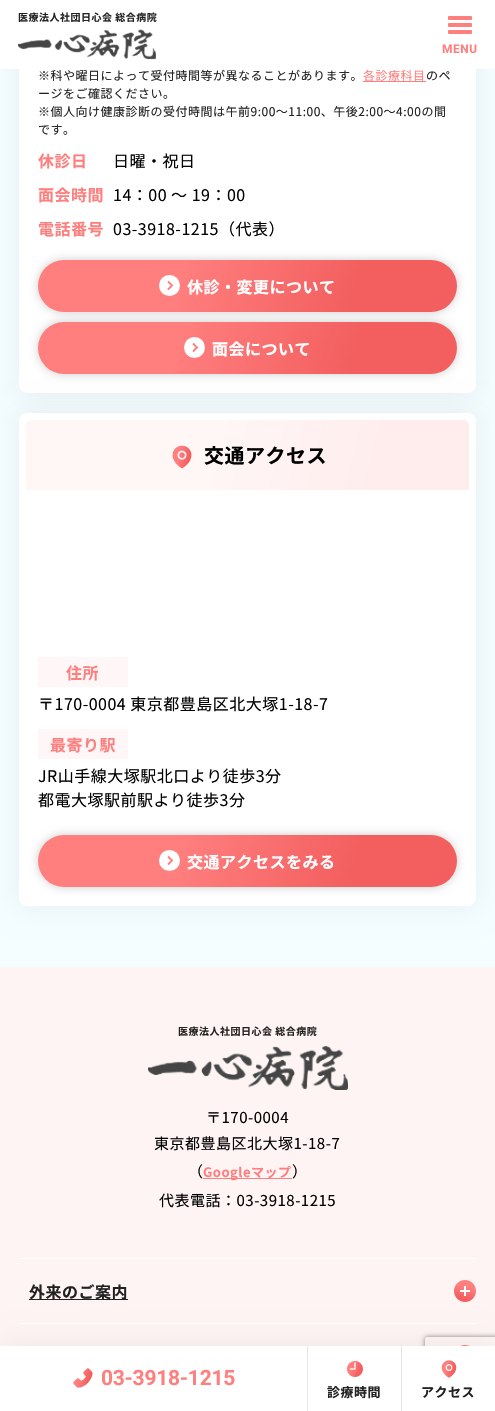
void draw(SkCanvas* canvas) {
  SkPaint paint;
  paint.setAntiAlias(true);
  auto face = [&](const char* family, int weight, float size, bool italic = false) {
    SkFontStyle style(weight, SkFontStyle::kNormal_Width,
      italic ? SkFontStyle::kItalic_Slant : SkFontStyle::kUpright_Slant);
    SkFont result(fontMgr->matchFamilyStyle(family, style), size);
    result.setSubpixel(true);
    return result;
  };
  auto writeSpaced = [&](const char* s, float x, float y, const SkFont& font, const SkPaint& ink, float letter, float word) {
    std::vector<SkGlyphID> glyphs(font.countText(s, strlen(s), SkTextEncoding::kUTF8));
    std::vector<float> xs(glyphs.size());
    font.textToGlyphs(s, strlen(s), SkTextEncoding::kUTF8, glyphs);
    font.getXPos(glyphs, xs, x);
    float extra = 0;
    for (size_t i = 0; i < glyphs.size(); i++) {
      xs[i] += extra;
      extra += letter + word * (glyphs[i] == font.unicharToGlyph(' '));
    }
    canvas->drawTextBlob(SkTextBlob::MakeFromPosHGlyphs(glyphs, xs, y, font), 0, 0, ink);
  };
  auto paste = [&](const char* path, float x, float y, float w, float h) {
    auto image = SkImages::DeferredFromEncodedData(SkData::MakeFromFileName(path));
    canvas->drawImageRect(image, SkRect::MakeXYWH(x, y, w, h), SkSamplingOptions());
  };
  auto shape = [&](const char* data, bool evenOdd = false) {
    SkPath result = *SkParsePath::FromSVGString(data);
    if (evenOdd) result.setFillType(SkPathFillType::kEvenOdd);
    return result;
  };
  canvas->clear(0xfff4fdff);
  paint.setColor(0x0f000000);
  paint.setMaskFilter(SkMaskFilter::MakeBlur(kNormal_SkBlurStyle, 15));
  canvas->drawRoundRect(SkRect::MakeXYWH(19, -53, 457, 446), 8, 8, paint);
  paint.setMaskFilter(nullptr);
  paint.setColor(0xffffffff);
  canvas->drawRoundRect(SkRect::MakeXYWH(19, -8, 457, 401), 8, 8, paint);
  canvas->drawRect(SkRect::MakeXYWH(0, 0, 495, 69), paint);
  paste("img/1.png", 18, 29, 138, 31);
  paste("img/2.png", 442, 16, 35, 38);
  paint.setColor(0xffff7f7f);
  canvas->drawRect(SkRect::MakeXYWH(363, 81, 63, 1), paint);
  paint.setColor(0x33000000);
  paint.setMaskFilter(SkMaskFilter::MakeBlur(kNormal_SkBlurStyle, 5));
  canvas->drawRoundRect(SkRect::MakeXYWH(38, 260, 419, 52), 26, 26, paint);
  paint.setMaskFilter(nullptr);
  {
    const SkColor colors[] = {0xffff7e7e, 0xfff35f5f};
    const float stops[] = {0.34f, 0.75f};
    const SkPoint ends[] = {{50, 223}, {445, 349}};
    paint.setShader(SkGradientShader::MakeLinear(ends, colors, stops, 2, SkTileMode::kClamp));
    paint.setAlpha(255);
  }
  canvas->drawRoundRect(SkRect::MakeXYWH(38, 260, 419, 52), 26, 26, paint);
  paint.setShader(nullptr);
  paint.setColor(0xffffffff);
  canvas->drawCircle(169.5f, 285.5f, 10.5f, paint);
  paint.setStroke(true);
  paint.setStrokeWidth(1.9f);
  paint.setColor(0xffff7e7e);
  canvas->drawPath(shape("M168 289.5L172 285.5L168 281.5"), paint);
  paint.setStroke(false);
  paint.setColor(0x33000000);
  paint.setMaskFilter(SkMaskFilter::MakeBlur(kNormal_SkBlurStyle, 5));
  canvas->drawRoundRect(SkRect::MakeXYWH(38, 322, 419, 52), 26, 26, paint);
  paint.setMaskFilter(nullptr);
  paint.setColor(0x0f000000);
  paint.setMaskFilter(SkMaskFilter::MakeBlur(kNormal_SkBlurStyle, 15));
  canvas->drawRoundRect(SkRect::MakeXYWH(19, 413, 457, 493), 8, 8, paint);
  paint.setMaskFilter(nullptr);
  {
    const SkColor colors[] = {0xffff7e7e, 0xfff35f5f};
    const float stops[] = {0.34f, 0.75f};
    const SkPoint ends[] = {{50, 285}, {445, 411}};
    paint.setShader(SkGradientShader::MakeLinear(ends, colors, stops, 2, SkTileMode::kClamp));
    paint.setAlpha(255);
  }
  canvas->drawRoundRect(SkRect::MakeXYWH(38, 322, 419, 52), 26, 26, paint);
  paint.setShader(nullptr);
  paint.setColor(0xffffffff);
  canvas->drawCircle(194.5f, 347.5f, 10.5f, paint);
  paint.setStroke(true);
  paint.setColor(0xffff7e7e);
  canvas->drawPath(shape("M193 351.5L197 347.5L193 343.5"), paint);
  paint.setStroke(false);
  paint.setColor(0xffffffff);
  canvas->drawRoundRect(SkRect::MakeXYWH(19, 413, 457, 493), 8, 8, paint);
  {
    const SkColor colors[] = {0xfffff6f6, 0xffffeded};
    const float stops[] = {0.42f, 0.79f};
    const SkPoint ends[] = {{31, 400}, {464, 510}};
    paint.setShader(SkGradientShader::MakeLinear(ends, colors, stops, 2, SkTileMode::kClamp));
    paint.setAlpha(255);
  }
  canvas->drawPath(shape("M32 420H463C466.5 420 469 422.5 469 426V490H26V426C26 422.5 28.5 420 32 420Z"), paint);
  paste("img/3.png", 172, 445, 20, 24);
  paint.setShader(nullptr);
  paint.setColor(0xfffff7f7);
  canvas->drawRect(SkRect::MakeXYWH(38, 657, 90, 30), paint);
  canvas->drawRect(SkRect::MakeXYWH(38, 729, 90, 30), paint);
  paint.setColor(0x33000000);
  paint.setMaskFilter(SkMaskFilter::MakeBlur(kNormal_SkBlurStyle, 5));
  canvas->drawRoundRect(SkRect::MakeXYWH(38, 835, 419, 52), 26, 26, paint);
  paint.setMaskFilter(nullptr);
  {
    const SkColor colors[] = {0xffff7e7e, 0xfff35f5f};
    const float stops[] = {0.34f, 0.75f};
    const SkPoint ends[] = {{50, 798}, {445, 924}};
    paint.setShader(SkGradientShader::MakeLinear(ends, colors, stops, 2, SkTileMode::kClamp));
    paint.setAlpha(255);
  }
  canvas->drawRoundRect(SkRect::MakeXYWH(38, 835, 419, 52), 26, 26, paint);
  paint.setShader(nullptr);
  paint.setColor(0xffffffff);
  canvas->drawCircle(169.5f, 860.5f, 10.5f, paint);
  paint.setStroke(true);
  paint.setColor(0xffff7e7e);
  canvas->drawPath(shape("M168 864.5L172 860.5L168 856.5"), paint);
  paint.setStroke(false);
  paint.setColor(0xfffff4f4);
  canvas->drawRect(SkRect::MakeXYWH(0, 967, 495, 379), paint);
  paste("img/4.png", 148, 1046, 200, 44);
  {
    const struct { float x, y, w, h; SkColor color; } items[] = {
      {203, 1178, 89, 1, 0xffff7f7f},
      {19, 1258, 457, 1, 0xffffffff},
      {29, 1299, 99, 1, 0xff212121},
    };
    for (auto [x, y, w, h, color] : items) {
      paint.setColor(color);
      canvas->drawRect(SkRect::MakeXYWH(x, y, w, h), paint);
    }
  }
  paste("img/5.png", 454, 1280, 22, 22);
  paint.setColor(0xffffffff);
  canvas->drawRect(SkRect::MakeXYWH(19, 1323, 457, 1), paint);
  paste("img/6.png", 460, 1345, 10, 1);
  canvas->save();
  canvas->clipPath(shape("M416 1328H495V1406H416ZM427 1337H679C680 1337 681 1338 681 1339V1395C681 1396 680 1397 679 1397H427C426 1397 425 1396 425 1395V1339C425 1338 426 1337 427 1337Z", true), true);
  paint.setColor(0xff808080);
  paint.setMaskFilter(SkMaskFilter::MakeBlur(kNormal_SkBlurStyle, 2.5f));
  canvas->drawRoundRect(SkRect::MakeXYWH(425, 1337, 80, 60), 2, 2, paint);
  paint.setMaskFilter(nullptr);
  canvas->restore();
  paint.setColor(0x0f000000);
  paint.setMaskFilter(SkMaskFilter::MakeBlur(kNormal_SkBlurStyle, 15));
  canvas->drawRect(SkRect::MakeXYWH(0, 1346, 495, 65), paint);
  paint.setMaskFilter(nullptr);
  paint.setColor(0xffffffff);
  canvas->drawRect(SkRect::MakeXYWH(0, 1346, 495, 65), paint);
  paste("img/7.png", 73, 1368, 20, 20);
  paint.setColor(0xffe5e5e5);
  canvas->drawRect(SkRect::MakeXYWH(307, 1346, 1, 65), paint);
  paste("img/8.png", 347, 1361, 16, 16);
  canvas->drawRect(SkRect::MakeXYWH(401, 1346, 1, 65), paint);
  paste("img/9.png", 441, 1360, 16, 18);
  auto f0 = face("Noto Sans JP", 700, 10);
  paint.setColor(0xff212121);
  writeSpaced("医療法人社団日心会 総合病院", 18, 21, f0, paint, 0.5f, 0);
  auto f1 = face("Noto Sans JP", 400, 12);
  writeSpaced("※科や曜日によって受付時間等が異なることがあります。", 38, 80, f1, paint, 0.5f, 0);
  paint.setColor(0xffff7f7f);
  writeSpaced("各診療科目", 363, 80, f1, paint, 0.5f, 0);
  paint.setColor(0xff212121);
  {
    const struct { const char* s; float x, y; } items[] = {
      {"のペ", 426, 80},
      {"ージをご確認ください。", 38, 98},
      {"※個人向け健康診断の受付時間は午前9:00～11:00、午後2:00～4:00の間", 38, 116},
      {"です。", 38, 134},
    };
    for (auto [s, x, y] : items) {
      writeSpaced(s, x, y, f1, paint, 0.5f, 0);
    }
  }
  auto f2 = face("Noto Sans JP", 700, 16);
  paint.setColor(0xffff7f7f);
  writeSpaced("休診日", 38, 167, f2, paint, 0.5f, 0);
  auto f3 = face("Noto Sans JP", 400, 16);
  paint.setColor(0xff000000);
  writeSpaced("日曜・祝日", 113, 167, f3, paint, 0.5f, 0);
  paint.setColor(0xffff7f7f);
  writeSpaced("面会時間", 38, 201, f2, paint, 0.5f, 0);
  paint.setColor(0xff000000);
  writeSpaced("14：00 ～ 19：00", 113, 201, f3, paint, 0.5f, 0);
  paint.setColor(0xffff7f7f);
  writeSpaced("電話番号", 38, 235, f2, paint, 0.5f, 0);
  paint.setColor(0xff000000);
  writeSpaced("03-3918-1215（代表）", 113, 235, f3, paint, 0.5f, 0);
  paint.setColor(0xffffffff);
  writeSpaced("休診・変更について", 187, 293, f2, paint, 0.5f, 0);
  writeSpaced("面会について", 212, 355, f2, paint, 0.5f, 0);
  auto f4 = face("Noto Sans JP", 700, 20);
  paint.setColor(0xff000000);
  writeSpaced("交通アクセス", 204, 463, f4, paint, 0.5f, 0);
  paint.setColor(0xffff7f7f);
  writeSpaced("住所", 66, 679, f2, paint, 0.5f, 0);
  paint.setColor(0xff000000);
  writeSpaced("〒170-0004 東京都豊島区北大塚1-18-7", 38, 710, f3, paint, 0.5f, 0);
  paint.setColor(0xffff7f7f);
  writeSpaced("最寄り駅", 50, 751, f2, paint, 0.5f, 0);
  paint.setColor(0xff000000);
  writeSpaced("JR山手線大塚駅北口より徒歩3分", 38, 782, f3, paint, 0.5f, 0);
  writeSpaced("都電大塚駅前駅より徒歩3分", 38, 806, f3, paint, 0.5f, 0);
  paint.setColor(0xffffffff);
  writeSpaced("交通アクセスをみる", 187, 868, f2, paint, 0.5f, 0);
  paint.setColor(0xff212121);
  writeSpaced("医療法人社団日心会 総合病院", 178, 1035, f0, paint, 0.5f, 0);
  auto f5 = face("Noto Sans JP", 400, 15);
  paint.setColor(0xff000000);
  {
    const struct { const char* s; float x, y; } items[] = {
      {"〒170-0004", 206, 1123},
      {"東京都豊島区北大塚1-18-7", 154, 1149},
      {"（", 188, 1177},
    };
    for (auto [s, x, y] : items) {
      writeSpaced(s, x, y, f5, paint, 0.5f, 0);
    }
  }
  auto f6 = face("Noto Sans JP", 700, 13);
  paint.setColor(0xffff7f7f);
  writeSpaced("Googleマップ", 203, 1177, f6, paint, 0.5f, 0);
  paint.setColor(0xff000000);
  writeSpaced("）", 292, 1177, f5, paint, 0.5f, 0);
  writeSpaced("代表電話：03-3918-1215", 159, 1206, f5, paint, 0.5f, 0);
  paint.setColor(0xff212121);
  writeSpaced("外来のご案内", 29, 1298, f2, paint, 0.5f, 0);
  auto f7 = face("Roboto", 700, 21);
  paint.setColor(0xffff7f7f);
  writeSpaced("03-3918-1215", 101, 1385, f7, paint, -0.25f, 0);
  paint.setColor(0xff212121);
  writeSpaced("診療時間", 327, 1397, f6, paint, 0.5f, 0);
  writeSpaced("アクセス", 421, 1397, f6, paint, 0.5f, 0);
}
